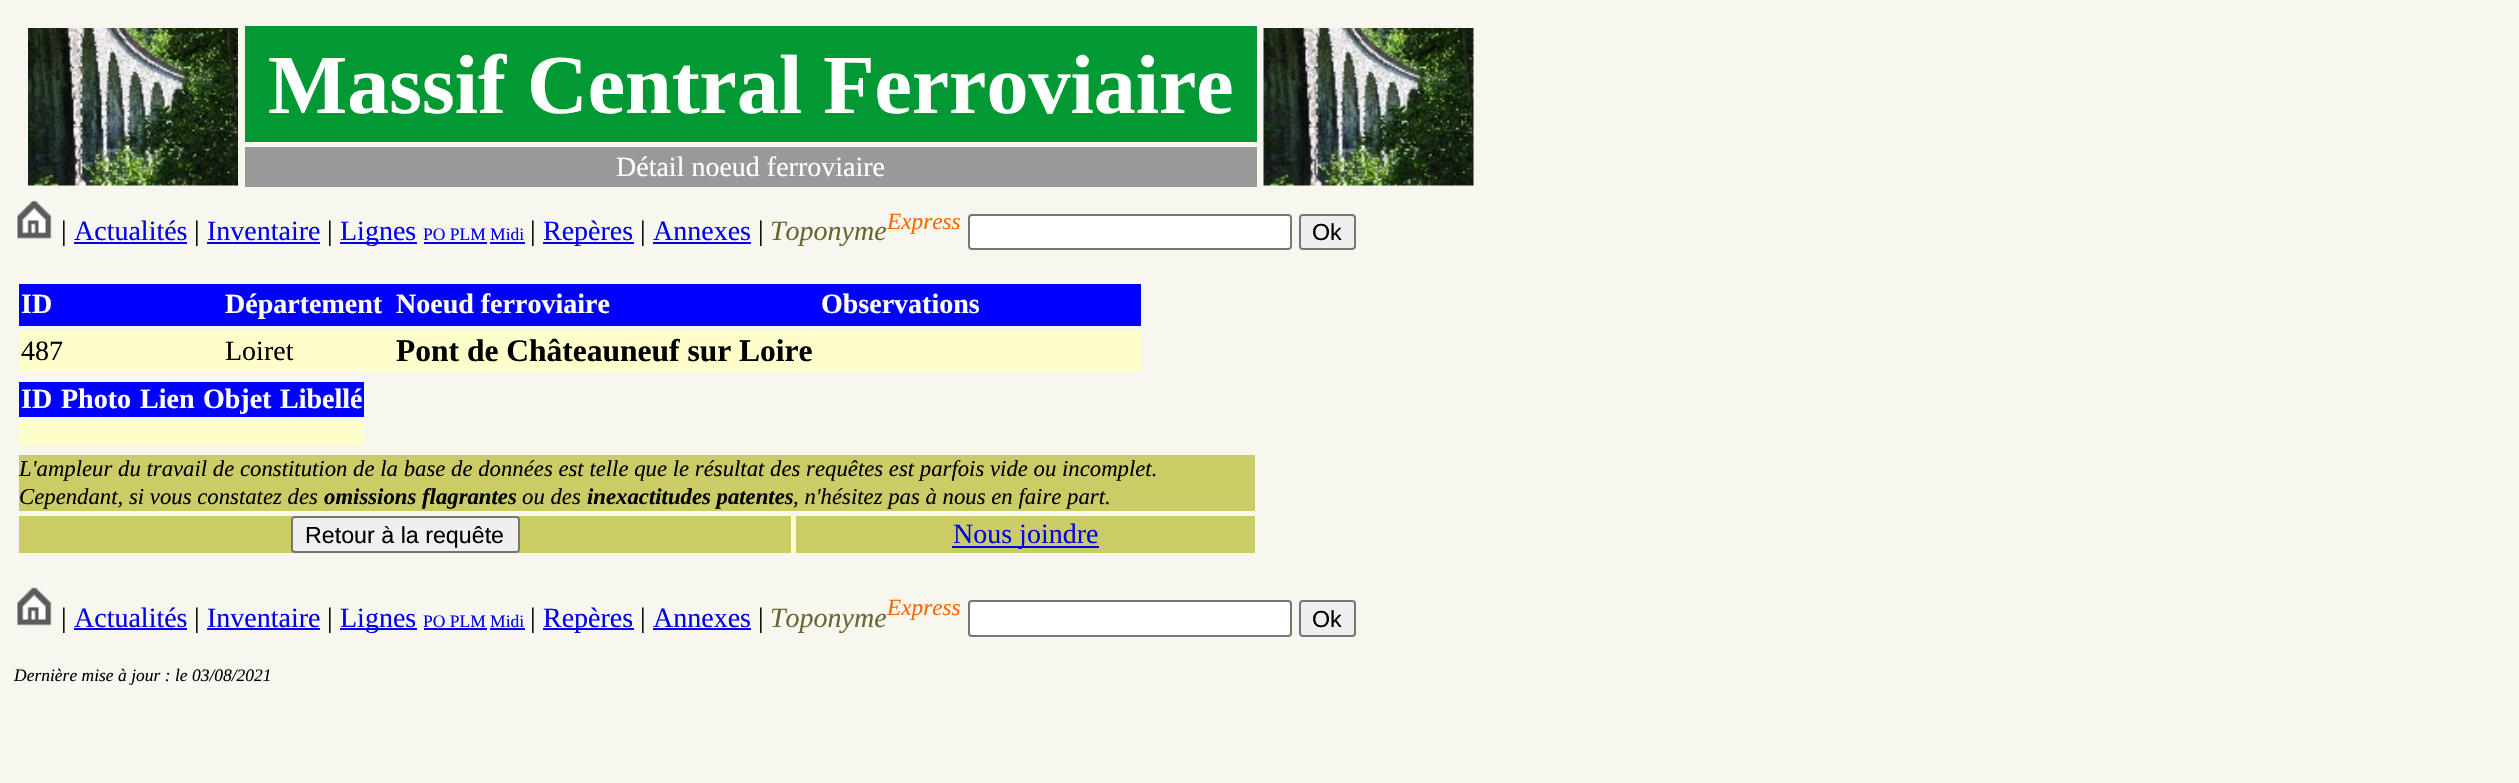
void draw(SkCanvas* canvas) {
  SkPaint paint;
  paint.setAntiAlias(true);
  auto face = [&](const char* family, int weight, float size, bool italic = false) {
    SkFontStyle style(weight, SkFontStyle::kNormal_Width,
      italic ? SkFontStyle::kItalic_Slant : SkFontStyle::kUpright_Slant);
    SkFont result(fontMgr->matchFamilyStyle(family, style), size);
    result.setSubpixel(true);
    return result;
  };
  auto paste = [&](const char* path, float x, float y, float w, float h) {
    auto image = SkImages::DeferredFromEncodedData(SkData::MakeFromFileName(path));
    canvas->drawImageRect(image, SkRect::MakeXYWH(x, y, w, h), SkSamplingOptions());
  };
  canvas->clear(0xfff7f7f0);
  paste("img/1.png", 28, 28, 210, 158);
  paint.setColor(0xff009933);
  canvas->drawRect(SkRect::MakeXYWH(245, 26, 1012, 116), paint);
  paste("img/2.png", 1263, 28, 211, 158);
  paint.setColor(0xff999999);
  canvas->drawRect(SkRect::MakeXYWH(245, 147, 1012, 40), paint);
  paste("img/3.png", 17, 200, 35, 39);
  {
    const struct { float x, y, w, h; SkColor color; } items[] = {
      {74, 242, 113, 2, 0xff0000ee},
      {207, 242, 113, 2, 0xff0000ee},
      {340, 242, 77, 2, 0xff0000ee},
      {424, 242, 63, 2, 0xff0000ee},
      {490, 242, 35, 2, 0xff0000ee},
      {543, 242, 91, 2, 0xff0000ee},
      {653, 242, 98, 2, 0xff0000ee},
    };
    for (auto [x, y, w, h, color] : items) {
      paint.setColor(color);
      canvas->drawRect(SkRect::MakeXYWH(x, y, w, h), paint);
    }
  }
  paint.setColor(0xffffffff);
  canvas->drawRoundRect(SkRect::MakeXYWH(969, 215, 322, 34), 3, 3, paint);
  paint.setStroke(true);
  paint.setStrokeWidth(2);
  paint.setColor(0xff767676);
  canvas->drawRoundRect(SkRect::MakeXYWH(969, 215, 322, 34), 3, 3, paint);
  paint.setStroke(false);
  paint.setColor(0xffefefef);
  canvas->drawRoundRect(SkRect::MakeXYWH(1300, 215, 55, 34), 3, 3, paint);
  paint.setStroke(true);
  paint.setColor(0xff767676);
  canvas->drawRoundRect(SkRect::MakeXYWH(1300, 215, 55, 34), 3, 3, paint);
  paint.setStroke(false);
  {
    const struct { float x, y, w, h; SkColor color; } items[] = {
      {19, 284, 1122, 42, 0xff0000ff},
      {19, 331, 1122, 40, 0xffffffcc},
      {19, 382, 345, 35, 0xff0000ff},
      {19, 422, 345, 23, 0xffffffcc},
      {19, 455, 1236, 56, 0xffcccc66},
      {791, 516, 5, 37, 0xffffffcc},
      {19, 516, 772, 37, 0xffcccc66},
    };
    for (auto [x, y, w, h, color] : items) {
      paint.setColor(color);
      canvas->drawRect(SkRect::MakeXYWH(x, y, w, h), paint);
    }
  }
  paint.setColor(0xffefefef);
  canvas->drawRoundRect(SkRect::MakeXYWH(292, 517, 227, 35), 3, 3, paint);
  paint.setStroke(true);
  paint.setColor(0xff767676);
  canvas->drawRoundRect(SkRect::MakeXYWH(292, 517, 227, 35), 3, 3, paint);
  paint.setStroke(false);
  paint.setColor(0xffcccc66);
  canvas->drawRect(SkRect::MakeXYWH(796, 516, 459, 37), paint);
  paint.setColor(0xff0000ee);
  canvas->drawRect(SkRect::MakeXYWH(952, 546, 147, 2), paint);
  paste("img/4.png", 17, 587, 35, 39);
  {
    const struct { float x, y, w, h; SkColor color; } items[] = {
      {74, 628, 113, 2, 0xff0000ee},
      {207, 628, 113, 2, 0xff0000ee},
      {340, 628, 77, 2, 0xff0000ee},
      {424, 628, 63, 2, 0xff0000ee},
      {490, 628, 35, 2, 0xff0000ee},
      {543, 628, 91, 2, 0xff0000ee},
      {653, 628, 98, 2, 0xff0000ee},
    };
    for (auto [x, y, w, h, color] : items) {
      paint.setColor(color);
      canvas->drawRect(SkRect::MakeXYWH(x, y, w, h), paint);
    }
  }
  paint.setColor(0xffffffff);
  canvas->drawRoundRect(SkRect::MakeXYWH(969, 601, 322, 35), 3, 3, paint);
  paint.setStroke(true);
  paint.setColor(0xff767676);
  canvas->drawRoundRect(SkRect::MakeXYWH(969, 601, 322, 35), 3, 3, paint);
  paint.setStroke(false);
  paint.setColor(0xffefefef);
  canvas->drawRoundRect(SkRect::MakeXYWH(1300, 601, 55, 35), 3, 3, paint);
  paint.setStroke(true);
  paint.setColor(0xff767676);
  canvas->drawRoundRect(SkRect::MakeXYWH(1300, 601, 55, 35), 3, 3, paint);
  auto f0 = face("Liberation Serif", 700, 84);
  paint.setStroke(false);
  paint.setColor(0xffffffff);
  canvas->drawString("Massif Central Ferroviaire", 268, 113, f0, paint);
  auto f1 = face("Liberation Serif", 400, 28);
  canvas->drawString("Détail noeud ferroviaire", 616, 176, f1, paint);
  paint.setColor(0xff000000);
  canvas->drawString("|", 61, 240, f1, paint);
  paint.setColor(0xff0000ee);
  canvas->drawString("Actualités", 74, 240, f1, paint);
  paint.setColor(0xff000000);
  canvas->drawString("|", 194, 240, f1, paint);
  paint.setColor(0xff0000ee);
  canvas->drawString("Inventaire", 207, 240, f1, paint);
  paint.setColor(0xff000000);
  canvas->drawString("|", 327, 240, f1, paint);
  paint.setColor(0xff0000ee);
  canvas->drawString("Lignes", 340, 240, f1, paint);
  auto f2 = face("Liberation Serif", 400, 17.5f);
  canvas->drawString("PO PLM Midi", 423, 240, f2, paint);
  paint.setColor(0xff000000);
  canvas->drawString("|", 530, 240, f1, paint);
  paint.setColor(0xff0000ee);
  canvas->drawString("Repères", 543, 240, f1, paint);
  paint.setColor(0xff000000);
  canvas->drawString("|", 640, 240, f1, paint);
  paint.setColor(0xff0000ee);
  canvas->drawString("Annexes", 653, 240, f1, paint);
  paint.setColor(0xff000000);
  canvas->drawString("|", 758, 240, f1, paint);
  auto f3 = face("Liberation Serif", 400, 28, true);
  paint.setColor(0xff666633);
  canvas->drawString("Toponyme", 770, 240, f3, paint);
  auto f4 = face("Liberation Serif", 400, 23.25f, true);
  paint.setColor(0xffff6600);
  canvas->drawString("Express", 887, 229, f4, paint);
  auto f5 = face("Liberation Sans", 400, 23.25f);
  paint.setColor(0xff000000);
  canvas->drawString("Ok", 1312, 240, f5, paint);
  auto f6 = face("Liberation Serif", 700, 28);
  paint.setColor(0xffffffff);
  {
    const struct { const char* s; float x, y; } items[] = {
      {"ID", 21, 313},
      {"Département", 225, 313},
      {"Noeud ferroviaire", 396, 313},
      {"Observations", 821, 313},
    };
    for (auto [s, x, y] : items) {
      canvas->drawString(s, x, y, f6, paint);
    }
  }
  paint.setColor(0xff000000);
  canvas->drawString("487", 21, 360, f1, paint);
  canvas->drawString("Loiret", 225, 360, f1, paint);
  auto f7 = face("Liberation Serif", 700, 31.5f);
  canvas->drawString("Pont de Châteauneuf sur Loire", 396, 361, f7, paint);
  paint.setColor(0xffffffff);
  {
    const struct { const char* s; float x, y; } items[] = {
      {"ID", 21, 408},
      {"Photo", 61, 408},
      {"Lien", 140, 408},
      {"Objet", 203, 408},
      {"Libellé", 280, 408},
    };
    for (auto [s, x, y] : items) {
      canvas->drawString(s, x, y, f6, paint);
    }
  }
  auto f8 = face("Liberation Serif", 400, 22.75f, true);
  paint.setColor(0xff000000);
  canvas->drawString("L'ampleur du travail de constitution de la base de données est telle que le résultat des requêtes est parfois vide ou incomplet.", 19, 476, f8, paint);
  canvas->drawString("Cependant, si vous constatez des", 19, 504, f8, paint);
  auto f9 = face("Liberation Serif", 700, 22.75f, true);
  canvas->drawString("omissions flagrantes", 324, 504, f9, paint);
  canvas->drawString("ou des", 522, 504, f8, paint);
  canvas->drawString("inexactitudes patentes", 587, 504, f9, paint);
  canvas->drawString(", n'hésitez pas à nous en faire part.", 793, 504, f8, paint);
  canvas->drawString("Retour à la requête", 305, 543, f5, paint);
  paint.setColor(0xff0000ee);
  canvas->drawString("Nous joindre", 953, 543, f1, paint);
  paint.setColor(0xff000000);
  canvas->drawString("|", 61, 627, f1, paint);
  paint.setColor(0xff0000ee);
  canvas->drawString("Actualités", 74, 627, f1, paint);
  paint.setColor(0xff000000);
  canvas->drawString("|", 194, 627, f1, paint);
  paint.setColor(0xff0000ee);
  canvas->drawString("Inventaire", 207, 627, f1, paint);
  paint.setColor(0xff000000);
  canvas->drawString("|", 327, 627, f1, paint);
  paint.setColor(0xff0000ee);
  canvas->drawString("Lignes", 340, 627, f1, paint);
  canvas->drawString("PO PLM Midi", 423, 627, f2, paint);
  paint.setColor(0xff000000);
  canvas->drawString("|", 530, 627, f1, paint);
  paint.setColor(0xff0000ee);
  canvas->drawString("Repères", 543, 627, f1, paint);
  paint.setColor(0xff000000);
  canvas->drawString("|", 640, 627, f1, paint);
  paint.setColor(0xff0000ee);
  canvas->drawString("Annexes", 653, 627, f1, paint);
  paint.setColor(0xff000000);
  canvas->drawString("|", 758, 627, f1, paint);
  paint.setColor(0xff666633);
  canvas->drawString("Toponyme", 770, 627, f3, paint);
  paint.setColor(0xffff6600);
  canvas->drawString("Express", 887, 615, f4, paint);
  paint.setColor(0xff000000);
  canvas->drawString("Ok", 1312, 627, f5, paint);
  auto f10 = face("Liberation Serif", 400, 17.5f, true);
  canvas->drawString("Dernière mise à jour : le 03/08/2021", 14, 681, f10, paint);
}
